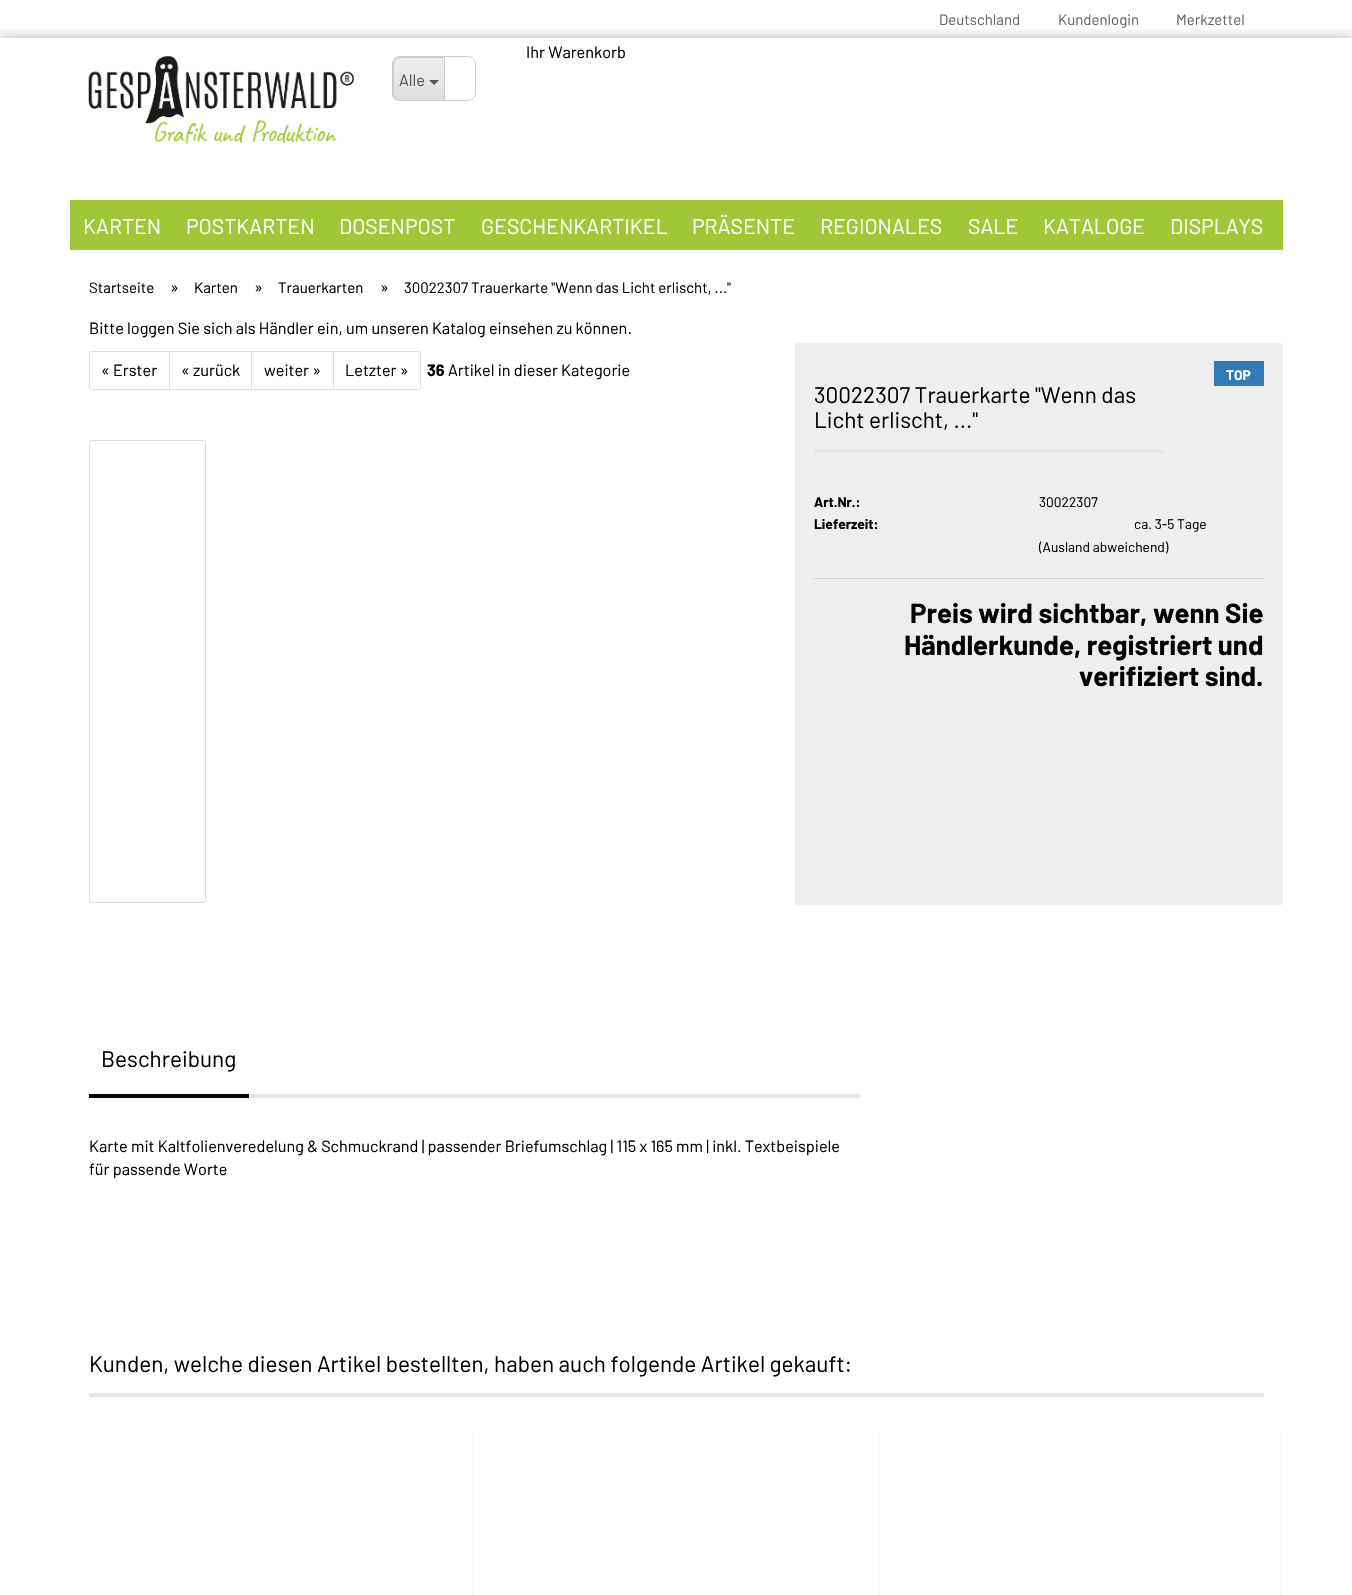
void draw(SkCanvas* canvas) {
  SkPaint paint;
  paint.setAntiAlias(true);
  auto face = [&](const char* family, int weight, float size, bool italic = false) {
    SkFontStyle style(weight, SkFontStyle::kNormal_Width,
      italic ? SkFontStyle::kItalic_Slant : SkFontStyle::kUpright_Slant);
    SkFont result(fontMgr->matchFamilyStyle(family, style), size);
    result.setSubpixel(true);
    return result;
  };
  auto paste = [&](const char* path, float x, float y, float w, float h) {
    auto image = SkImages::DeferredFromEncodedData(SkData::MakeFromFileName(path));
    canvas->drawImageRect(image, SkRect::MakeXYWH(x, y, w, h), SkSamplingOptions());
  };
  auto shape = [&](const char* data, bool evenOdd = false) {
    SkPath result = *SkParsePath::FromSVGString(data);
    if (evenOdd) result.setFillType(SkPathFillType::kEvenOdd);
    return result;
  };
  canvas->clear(0xffffffff);
  canvas->save();
  canvas->clipRect(SkRect::MakeXYWH(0, 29, 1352, 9));
  paint.setColor(0x4d000000);
  paint.setMaskFilter(SkMaskFilter::MakeBlur(kNormal_SkBlurStyle, 6));
  canvas->drawRect(SkRect::MakeXYWH(0, 38, 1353, 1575), paint);
  paint.setMaskFilter(nullptr);
  canvas->restore();
  paste("img/1.png", 88, 56, 266, 88);
  canvas->save();
  canvas->clipPath(shape("M401 56H444V101H401C396.5 101 393 97.5 393 93V64C393 59.5 396.5 56 401 56Z"), true);
  {
    const SkColor colors[] = {0xffeeeeee, 0xffdedede};
    const float stops[] = {0, 1};
    const SkPoint ends[] = {{419, 58}, {419, 100}};
    paint.setShader(SkGradientShader::MakeLinear(ends, colors, stops, 2, SkTileMode::kClamp));
    paint.setAlpha(255);
  }
  canvas->drawRect(SkRect::MakeXYWH(393, 58, 51, 42), paint);
  canvas->restore();
  paint.setShader(nullptr);
  paint.setColor(0xffcccccc);
  canvas->drawPath(shape("M400 56H444V101H400C396 101 392 98 392 94V64C392 60 396 56 400 56ZM400 58H444V100H400C397 100 394 97 394 94V64C394 60 397 58 400 58Z", true), paint);
  paint.setColor(0xff555555);
  canvas->drawPath(shape("M429 80H439L434 85Z"), paint);
  paint.setStroke(true);
  paint.setStrokeWidth(1);
  paint.setColor(0xffcccccc);
  canvas->drawPath(shape("M444.5 56.5H468C472 56.5 475.5 60 475.5 64V93C475.5 97 472 100.5 468 100.5H444.5Z"), paint);
  paint.setStroke(false);
  paint.setColor(0xffa1c638);
  canvas->drawRect(SkRect::MakeXYWH(70, 200, 1213, 50), paint);
  paint.setStroke(true);
  paint.setColor(0xffdddddd);
  canvas->drawPath(shape("M91.5 351.5H169.5V389.5H91.5C90.5 389.5 89.5 388.5 89.5 387.5V353.5C89.5 352.5 90.5 351.5 91.5 351.5Z"), paint);
  canvas->drawRect(SkRect::MakeXYWH(169.5f, 351.5f, 83, 38), paint);
  paint.setStroke(false);
  paint.setColor(0xffffffff);
  canvas->drawRect(SkRect::MakeXYWH(252, 352, 1, 37), paint);
  paint.setStroke(true);
  paint.setColor(0xffdddddd);
  canvas->drawRect(SkRect::MakeXYWH(251.5f, 351.5f, 82, 38), paint);
  paint.setStroke(false);
  paint.setColor(0xffffffff);
  canvas->drawPath(shape("M333.5 351.5H418.5C419.5 351.5 420.5 352.5 420.5 353.5V387.5C420.5 388.5 419.5 389.5 418.5 389.5H333.5Z"), paint);
  paint.setStroke(true);
  paint.setColor(0xffdddddd);
  canvas->drawPath(shape("M333.5 351.5H418.5C419.5 351.5 420.5 352.5 420.5 353.5V387.5C420.5 388.5 419.5 389.5 418.5 389.5H333.5Z"), paint);
  canvas->drawRoundRect(SkRect::MakeXYWH(89.5f, 440.5f, 116, 462), 2, 2, paint);
  paint.setStroke(false);
  paint.setColor(0xffeeeeee);
  canvas->drawRoundRect(SkRect::MakeXYWH(795, 343, 488, 562), 2.5f, 2.5f, paint);
  {
    const struct { float x, y, w, h; SkColor color; } items[] = {
      {1214, 361, 50, 25, 0xff337ab7},
      {814, 449, 350, 4, 0xffe7e7e7},
      {814, 578, 450, 1, 0xffd5d5d5},
      {249, 1094, 611, 4, 0xffe7e7e7},
      {89, 1094, 160, 4, 0xff000000},
      {89, 1393, 1175, 4, 0xffe7e7e7},
      {473, 1434, 1, 161, 0xffeeeeee},
      {878, 1434, 1, 161, 0xffeeeeee},
      {1281, 1434, 1, 161, 0xffeeeeee},
    };
    for (auto [x, y, w, h, color] : items) {
      paint.setColor(color);
      canvas->drawRect(SkRect::MakeXYWH(x, y, w, h), paint);
    }
  }
  auto f0 = face("Barlow", 400, 15);
  paint.setColor(0xff676464);
  {
    const struct { const char* s; float x, y; } items[] = {
      {"Deutschland", 939, 25},
      {"Kundenlogin", 1058, 25},
      {"Merkzettel", 1176, 25},
    };
    for (auto [s, x, y] : items) {
      canvas->drawString(s, x, y, f0, paint);
    }
  }
  auto f1 = face("Barlow", 400, 16.25f);
  paint.setColor(0xff000000);
  canvas->drawString("Ihr Warenkorb", 526, 58, f1, paint);
  paint.setColor(0xff555555);
  canvas->drawString("Alle", 399, 86, f1, paint);
  auto f2 = face("Barlow", 400, 21.25f);
  paint.setColor(0xffffffff);
  {
    const struct { const char* s; float x, y; } items[] = {
      {"KARTEN", 83, 234},
      {"POSTKARTEN", 186, 234},
      {"DOSENPOST", 339, 234},
      {"GESCHENKARTIKEL", 481, 234},
      {"PRÄSENTE", 692, 234},
      {"REGIONALES", 820, 234},
      {"SALE", 968, 234},
      {"KATALOGE", 1043, 234},
      {"DISPLAYS", 1170, 234},
    };
    for (auto [s, x, y] : items) {
      canvas->drawString(s, x, y, f2, paint);
    }
  }
  paint.setColor(0xff000000);
  canvas->drawString("Startseite", 89, 293, f0, paint);
  canvas->drawString("»", 170, 293, f1, paint);
  canvas->drawString("Karten", 194, 293, f0, paint);
  canvas->drawString("»", 254, 293, f1, paint);
  canvas->drawString("Trauerkarten", 278, 293, f0, paint);
  canvas->drawString("»", 380, 293, f1, paint);
  canvas->drawString("30022307 Trauerkarte \"Wenn das Licht erlischt, ...\"", 404, 293, f0, paint);
  {
    const struct { const char* s; float x, y; } items[] = {
      {"Bitte loggen Sie sich als Händler ein, um unseren Katalog einsehen zu können.", 89, 334},
      {"« Erster", 101, 376},
      {"« zurück", 181, 376},
      {"weiter »", 264, 376},
      {"Letzter »", 345, 376},
    };
    for (auto [s, x, y] : items) {
      canvas->drawString(s, x, y, f1, paint);
    }
  }
  auto f3 = face("Barlow", 700, 16.25f);
  canvas->drawString("36", 427, 376, f3, paint);
  canvas->drawString("Artikel in dieser Kategorie", 448, 376, f1, paint);
  auto f4 = face("Barlow", 700, 13.75f);
  paint.setColor(0xffffffff);
  canvas->drawString("TOP", 1226, 380, f4, paint);
  auto f5 = face("Barlow", 400, 22.5f);
  paint.setColor(0xff000000);
  canvas->drawString("30022307 Trauerkarte \"Wenn das", 814, 403, f5, paint);
  canvas->drawString("Licht erlischt, ...\"", 814, 428, f5, paint);
  canvas->drawString("Art.Nr.:", 814, 507, f4, paint);
  auto f6 = face("Barlow", 400, 13.75f);
  canvas->drawString("30022307", 1039, 507, f6, paint);
  canvas->drawString("Lieferzeit:", 814, 529, f4, paint);
  canvas->drawString("ca. 3-5 Tage", 1134, 529, f6, paint);
  canvas->drawString("(Ausland abweichend)", 1039, 552, f6, paint);
  auto f7 = face("Barlow", 700, 27.5f);
  {
    const struct { const char* s; float x, y; } items[] = {
      {"Preis wird sichtbar, wenn Sie", 910, 623},
      {"Händlerkunde, registriert und", 904, 655},
      {"verifiziert sind.", 1079, 686},
    };
    for (auto [s, x, y] : items) {
      canvas->drawString(s, x, y, f7, paint);
    }
  }
  canvas->drawString("Beschreibung", 101, 1067, f5, paint);
  canvas->drawString("Karte mit Kaltfolienveredelung & Schmuckrand | passender Briefumschlag | 115 x 165 mm | inkl. Textbeispiele", 89, 1152, f1, paint);
  canvas->drawString("für passende Worte", 89, 1175, f1, paint);
  canvas->drawString("Kunden, welche diesen Artikel bestellten, haben auch folgende Artikel gekauft:", 89, 1372, f5, paint);
}
